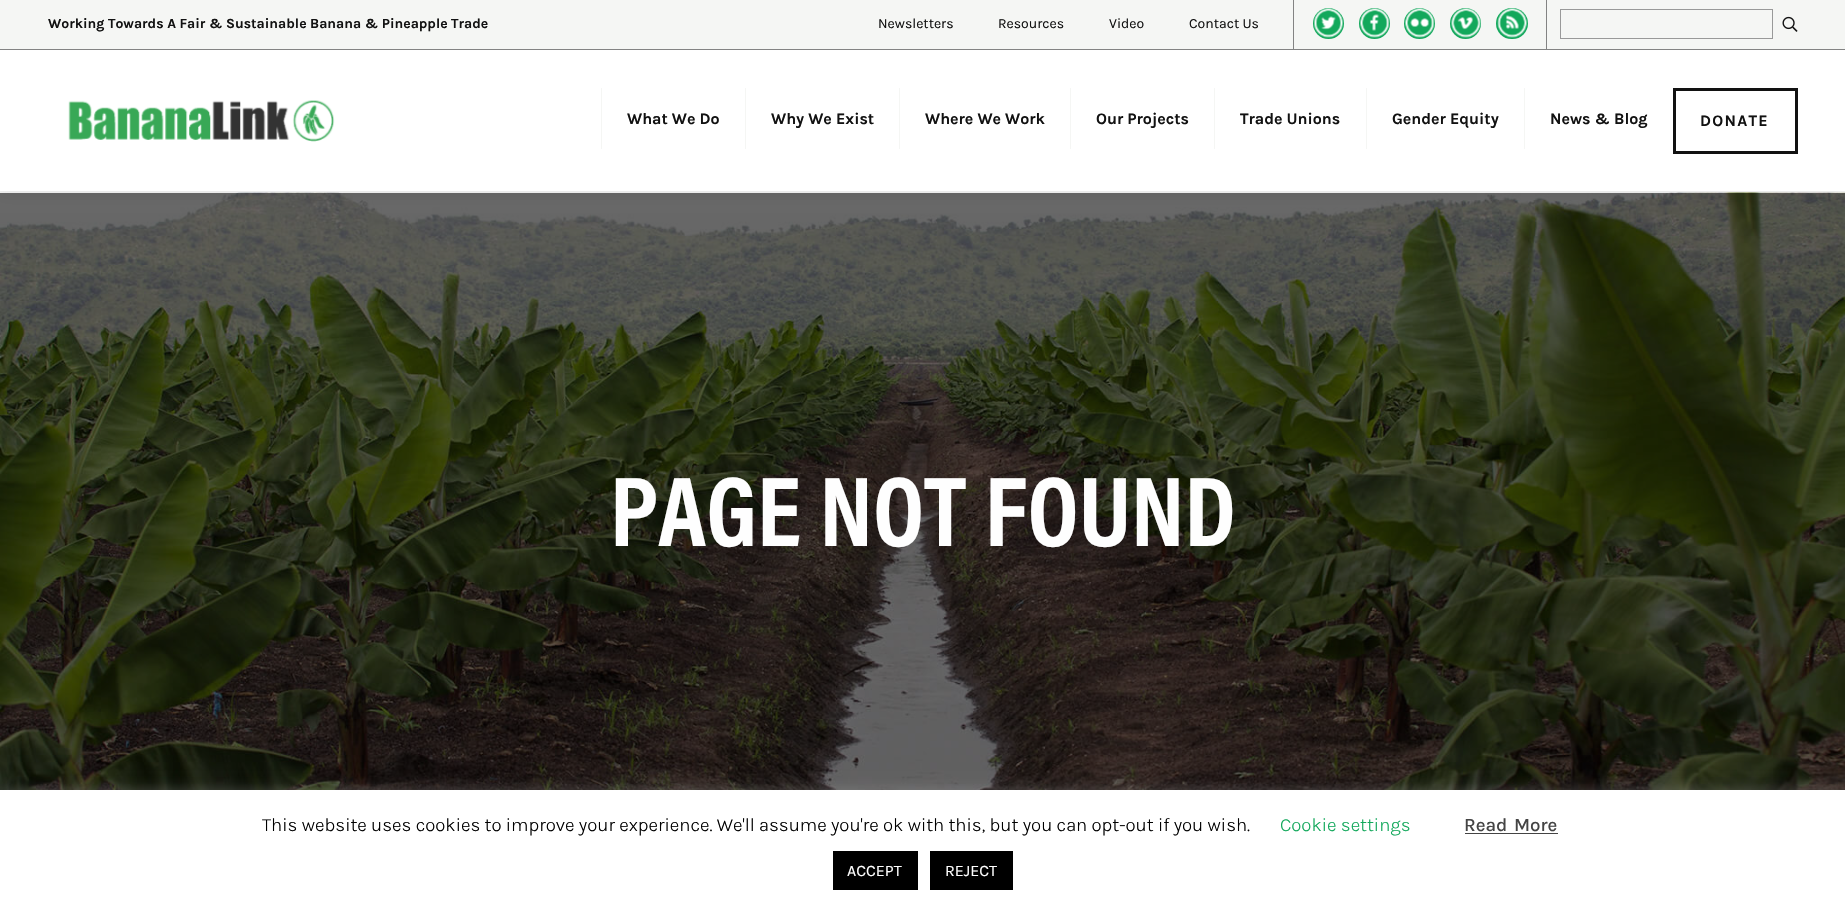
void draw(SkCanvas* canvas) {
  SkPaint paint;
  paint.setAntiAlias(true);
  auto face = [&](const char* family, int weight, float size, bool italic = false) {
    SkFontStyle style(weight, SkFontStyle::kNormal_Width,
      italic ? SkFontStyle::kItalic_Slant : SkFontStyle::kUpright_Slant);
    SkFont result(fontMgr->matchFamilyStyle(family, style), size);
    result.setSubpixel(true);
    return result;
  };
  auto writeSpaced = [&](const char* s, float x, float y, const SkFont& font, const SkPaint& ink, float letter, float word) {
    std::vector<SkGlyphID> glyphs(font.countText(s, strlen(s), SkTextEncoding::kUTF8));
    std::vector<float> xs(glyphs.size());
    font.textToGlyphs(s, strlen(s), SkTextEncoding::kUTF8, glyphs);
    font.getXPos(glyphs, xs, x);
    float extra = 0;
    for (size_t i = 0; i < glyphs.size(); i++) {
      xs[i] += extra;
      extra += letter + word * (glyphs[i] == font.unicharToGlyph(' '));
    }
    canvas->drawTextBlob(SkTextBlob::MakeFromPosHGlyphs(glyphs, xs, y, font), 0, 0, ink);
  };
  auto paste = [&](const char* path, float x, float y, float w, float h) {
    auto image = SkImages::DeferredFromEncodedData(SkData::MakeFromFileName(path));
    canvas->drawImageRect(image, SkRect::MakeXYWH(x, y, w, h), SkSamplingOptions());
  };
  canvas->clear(0xffffffff);
  paste("img/8.png", 0, 192, 1845, 598);
  canvas->save();
  canvas->clipRect(SkRect::MakeXYWH(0, 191, 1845, 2));
  paint.setColor(0x1a1e1e1e);
  paint.setMaskFilter(SkMaskFilter::MakeBlur(kNormal_SkBlurStyle, 7.5f));
  canvas->drawRect(SkRect::MakeXYWH(-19, 193, 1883, 625), paint);
  paint.setMaskFilter(nullptr);
  canvas->restore();
  paint.setColor(0x99020202);
  canvas->drawRect(SkRect::MakeXYWH(0, 193, 1845, 597), paint);
  paint.setColor(0x1a1e1e1e);
  paint.setMaskFilter(SkMaskFilter::MakeBlur(kNormal_SkBlurStyle, 7.5f));
  canvas->drawRect(SkRect::MakeXYWH(0, 50, 1845, 141), paint);
  paint.setMaskFilter(nullptr);
  {
    const struct { float x, y, w, h; SkColor color; } items[] = {
      {0, 0, 1845, 49, 0xfff5f6f4},
      {0, 49, 1845, 1, 0xff838383},
      {1546, 0, 1, 50, 0xff838383},
      {1293, 0, 1, 50, 0xff838383},
    };
    for (auto [x, y, w, h, color] : items) {
      paint.setColor(color);
      canvas->drawRect(SkRect::MakeXYWH(x, y, w, h), paint);
    }
  }
  paint.setColor(0xff12a85b);
  canvas->drawCircle(1328.5f, 23.5f, 15.5f, paint);
  paste("img/1.png", 1314, 8, 29, 30);
  canvas->drawCircle(1374.5f, 23.5f, 15.5f, paint);
  paste("img/2.png", 1360, 8, 30, 30);
  canvas->drawCircle(1419.5f, 23.5f, 15.5f, paint);
  paste("img/3.png", 1405, 8, 30, 30);
  canvas->drawCircle(1465.5f, 23.5f, 15.5f, paint);
  paste("img/4.png", 1451, 8, 30, 30);
  canvas->drawRoundRect(SkRect::MakeXYWH(1496, 8, 32, 31), 15.5f, 15.5f, paint);
  paste("img/5.png", 1497, 8, 30, 30);
  paint.setStroke(true);
  paint.setStrokeWidth(1);
  paint.setColor(0xff999999);
  canvas->drawRect(SkRect::MakeXYWH(1560.5f, 9.5f, 212, 29), paint);
  paste("img/6.png", 1782, 16, 16, 16);
  paint.setStroke(false);
  paint.setColor(0xffffffff);
  canvas->drawRect(SkRect::MakeXYWH(0, 50, 1845, 141), paint);
  paste("img/7.png", 68, 100, 267, 42);
  {
    const struct { float x, y, w, h; SkColor color; } items[] = {
      {601, 88, 1, 61, 0xfff5f6f4},
      {745, 88, 1, 61, 0xfff5f6f4},
      {899, 88, 1, 61, 0xfff5f6f4},
      {1070, 88, 1, 61, 0xfff5f6f4},
      {1214, 88, 1, 61, 0xfff5f6f4},
      {1366, 88, 1, 61, 0xfff5f6f4},
      {1524, 88, 1, 61, 0xfff5f6f4},
    };
    for (auto [x, y, w, h, color] : items) {
      paint.setColor(color);
      canvas->drawRect(SkRect::MakeXYWH(x, y, w, h), paint);
    }
  }
  paint.setStroke(true);
  paint.setStrokeWidth(3);
  paint.setColor(0xff121212);
  canvas->drawRect(SkRect::MakeXYWH(1674.5f, 89.5f, 122, 63), paint);
  paint.setStroke(false);
  paint.setColor(0x4dacabab);
  paint.setMaskFilter(SkMaskFilter::MakeBlur(kNormal_SkBlurStyle, 6));
  canvas->drawRect(SkRect::MakeXYWH(0, 789, 1845, 121), paint);
  paint.setMaskFilter(nullptr);
  {
    const struct { float x, y, w, h; SkColor color; } items[] = {
      {0, 790, 1845, 121, 0xffffffff},
      {1465, 833, 93, 1, 0xff444444},
      {833, 851, 85, 39, 0xff000000},
      {930, 851, 83, 39, 0xff000000},
    };
    for (auto [x, y, w, h, color] : items) {
      paint.setColor(color);
      canvas->drawRect(SkRect::MakeXYWH(x, y, w, h), paint);
    }
  }
  auto f0 = face("Karla", 700, 14);
  paint.setColor(0xff121212);
  canvas->drawString("Working Towards A Fair & Sustainable Banana & Pineapple Trade", 48, 28, f0, paint);
  auto f1 = face("Karla", 400, 14);
  {
    const struct { const char* s; float x, y; } items[] = {
      {"Newsletters", 878, 28},
      {"Resources", 998, 28},
      {"Video", 1109, 28},
      {"Contact Us", 1189, 28},
    };
    for (auto [s, x, y] : items) {
      canvas->drawString(s, x, y, f1, paint);
    }
  }
  auto f2 = face("Karla", 700, 16);
  {
    const struct { const char* s; float x, y; } items[] = {
      {"What We Do", 627, 124},
      {"Why We Exist", 771, 124},
      {"Where We Work", 925, 124},
      {"Our Projects", 1096, 124},
      {"Trade Unions", 1240, 124},
      {"Gender Equity", 1392, 124},
      {"News & Blog", 1550, 124},
    };
    for (auto [s, x, y] : items) {
      canvas->drawString(s, x, y, f2, paint);
    }
  }
  writeSpaced("DONATE", 1700, 126, f2, paint, 1.25f, 0);
  auto f3 = face("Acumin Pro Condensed", 700, 100);
  paint.setColor(0xfffefefe);
  canvas->drawString("PAGE NOT FOUND", 610, 546, f3, paint);
  auto f4 = face("Karla", 300, 18.75f);
  paint.setColor(0xff000000);
  canvas->drawString("This website uses cookies to improve your experience. We'll assume you're ok with this, but you can opt-out if you wish.", 262, 831, f4, paint);
  paint.setColor(0xff12a85b);
  canvas->drawString("Cookie settings", 1280, 831, f4, paint);
  auto f5 = face("Karla", 500, 18.75f);
  paint.setColor(0xff444444);
  writeSpaced("Read More", 1464, 831, f5, paint, 0, 2);
  auto f6 = face("Karla", 400, 16);
  paint.setColor(0xfffefefe);
  canvas->drawString("ACCEPT", 847, 876, f6, paint);
  canvas->drawString("REJECT", 945, 876, f6, paint);
}
